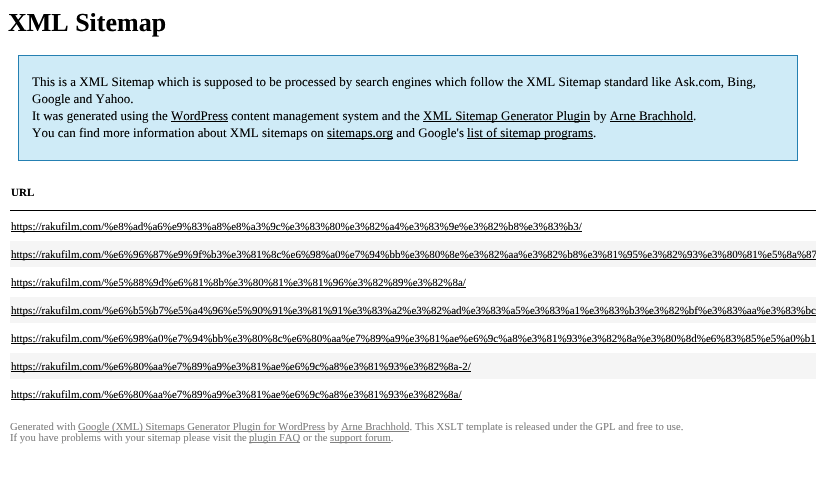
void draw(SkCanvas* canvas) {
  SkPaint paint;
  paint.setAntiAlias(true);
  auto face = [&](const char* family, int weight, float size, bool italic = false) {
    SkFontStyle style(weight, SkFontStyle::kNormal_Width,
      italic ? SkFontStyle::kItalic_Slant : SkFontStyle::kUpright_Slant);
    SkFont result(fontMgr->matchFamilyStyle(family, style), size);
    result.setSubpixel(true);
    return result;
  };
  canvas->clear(0xffffffff);
  paint.setColor(0xffcfebf7);
  canvas->drawRect(SkRect::MakeXYWH(18.5f, 55.5f, 779, 105), paint);
  paint.setStroke(true);
  paint.setStrokeWidth(1);
  paint.setColor(0xff2580b2);
  canvas->drawRect(SkRect::MakeXYWH(18.5f, 55.5f, 779, 105), paint);
  paint.setStroke(false);
  {
    const struct { float x, y, w, h; SkColor color; } items[] = {
      {423, 121, 167, 1, 0xff000000},
      {171, 121, 57, 1, 0xff000000},
      {610, 121, 83, 1, 0xff000000},
      {327, 138, 66, 1, 0xff000000},
      {467, 138, 126, 1, 0xff000000},
      {10, 210, 806, 1, 0xff000000},
      {11, 231, 571, 1, 0xff000000},
      {10, 241, 806, 26, 0xfff5f5f5},
      {11, 259, 805, 1, 0xff000000},
      {11, 287, 455, 1, 0xff000000},
      {10, 297, 806, 26, 0xfff5f5f5},
      {11, 315, 805, 1, 0xff000000},
      {11, 343, 805, 1, 0xff000000},
      {10, 353, 806, 26, 0xfff5f5f5},
      {11, 371, 460, 1, 0xff000000},
      {11, 399, 451, 1, 0xff000000},
      {78, 431, 247, 1, 0xff808080},
      {341, 431, 68, 1, 0xff808080},
      {249, 442, 51, 1, 0xff808080},
      {330, 442, 61, 1, 0xff808080},
    };
    for (auto [x, y, w, h, color] : items) {
      paint.setColor(color);
      canvas->drawRect(SkRect::MakeXYWH(x, y, w, h), paint);
    }
  }
  auto f0 = face("Liberation Serif", 700, 26);
  paint.setColor(0xff000000);
  canvas->drawString("XML Sitemap", 8, 31, f0, paint);
  auto f1 = face("Liberation Serif", 400, 13);
  {
    const struct { const char* s; float x, y; } items[] = {
      {"This is a XML Sitemap which is supposed to be processed by search engines which follow the XML Sitemap standard like Ask.com, Bing,", 32, 86},
      {"Google and Yahoo.", 32, 103},
      {"It was generated using the WordPress content management system and the", 32, 120},
      {"XML Sitemap Generator Plugin by Arne Brachhold.", 423, 120},
      {"You can find more information about XML sitemaps on", 32, 137},
      {"sitemaps.org and Google's", 327, 137},
      {"list of sitemap programs.", 467, 137},
    };
    for (auto [s, x, y] : items) {
      canvas->drawString(s, x, y, f1, paint);
    }
  }
  auto f2 = face("Liberation Serif", 700, 11);
  canvas->drawString("URL", 11, 196, f2, paint);
  auto f3 = face("Liberation Serif", 400, 11);
  {
    const struct { const char* s; float x, y; } items[] = {
      {"https://rakufilm.com/%e8%ad%a6%e9%83%a8%e8%a3%9c%e3%83%80%e3%82%a4%e3%83%9e%e3%82%b8%e3%83%b3/", 11, 230},
      {"https://rakufilm.com/%e6%96%87%e9%9f%b3%e3%81%8c%e6%98%a0%e7%94%bb%e3%80%8e%e3%82%aa%e3%82%b8%e3%81%95%e3%82%93%e3%80%81%e5%8a%87", 11, 258},
      {"https://rakufilm.com/%e5%88%9d%e6%81%8b%e3%80%81%e3%81%96%e3%82%89%e3%82%8a/", 11, 286},
      {"https://rakufilm.com/%e6%b5%b7%e5%a4%96%e5%90%91%e3%81%91%e3%83%a2%e3%82%ad%e3%83%a5%e3%83%a1%e3%83%b3%e3%82%bf%e3%83%aa%e3%83%bc", 11, 314},
      {"https://rakufilm.com/%e6%98%a0%e7%94%bb%e3%80%8c%e6%80%aa%e7%89%a9%e3%81%ae%e6%9c%a8%e3%81%93%e3%82%8a%e3%80%8d%e6%83%85%e5%a0%b1", 11, 342},
      {"https://rakufilm.com/%e6%80%aa%e7%89%a9%e3%81%ae%e6%9c%a8%e3%81%93%e3%82%8a-2/", 11, 370},
      {"https://rakufilm.com/%e6%80%aa%e7%89%a9%e3%81%ae%e6%9c%a8%e3%81%93%e3%82%8a/", 11, 398},
    };
    for (auto [s, x, y] : items) {
      canvas->drawString(s, x, y, f3, paint);
    }
  }
  auto f4 = face("Liberation Serif", 400, 10.67f);
  paint.setColor(0xff808080);
  {
    const struct { const char* s; float x, y; } items[] = {
      {"Generated with", 10, 430},
      {"Google (XML) Sitemaps Generator Plugin for WordPress by Arne Brachhold. This XSLT template is released under the GPL and free to use.", 78, 430},
      {"If you have problems with your sitemap please visit the", 10, 441},
      {"plugin FAQ or the", 249, 441},
      {"support forum.", 330, 441},
    };
    for (auto [s, x, y] : items) {
      canvas->drawString(s, x, y, f4, paint);
    }
  }
}
